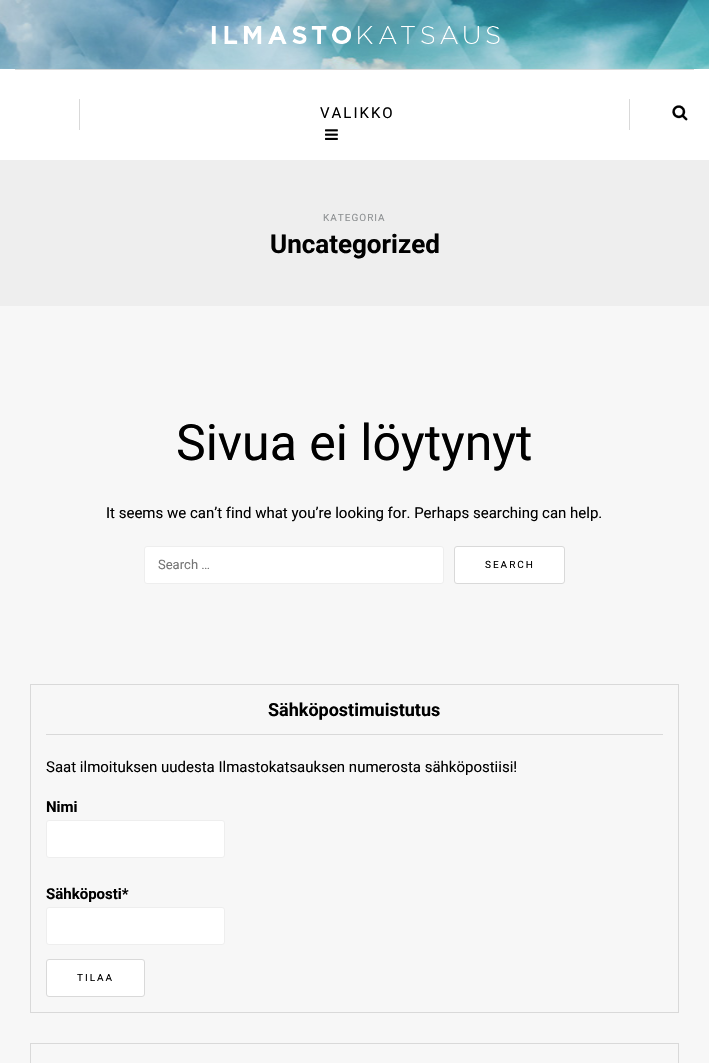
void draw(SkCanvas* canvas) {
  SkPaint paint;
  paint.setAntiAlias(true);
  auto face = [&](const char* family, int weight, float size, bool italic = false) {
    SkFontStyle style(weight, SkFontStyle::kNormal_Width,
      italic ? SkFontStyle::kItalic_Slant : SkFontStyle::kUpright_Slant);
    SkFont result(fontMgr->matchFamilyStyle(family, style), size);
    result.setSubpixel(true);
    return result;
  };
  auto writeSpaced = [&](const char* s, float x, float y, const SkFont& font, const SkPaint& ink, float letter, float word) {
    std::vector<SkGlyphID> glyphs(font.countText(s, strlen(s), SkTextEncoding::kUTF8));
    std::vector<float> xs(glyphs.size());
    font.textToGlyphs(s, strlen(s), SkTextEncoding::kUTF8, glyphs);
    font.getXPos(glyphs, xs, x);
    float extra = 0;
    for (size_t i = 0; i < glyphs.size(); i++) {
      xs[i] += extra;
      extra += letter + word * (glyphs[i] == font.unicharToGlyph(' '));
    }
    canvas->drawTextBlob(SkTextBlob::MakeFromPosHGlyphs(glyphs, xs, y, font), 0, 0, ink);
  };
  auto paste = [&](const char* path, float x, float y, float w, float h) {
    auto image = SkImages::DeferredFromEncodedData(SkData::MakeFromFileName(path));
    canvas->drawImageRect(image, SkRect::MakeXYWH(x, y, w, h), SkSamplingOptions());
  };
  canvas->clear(0xfff7f7f7);
  paste("img/1.png", 0, 0, 709, 69);
  paste("img/2.png", 211, 26, 289, 18);
  {
    const struct { float x, y, w, h; SkColor color; } items[] = {
      {0, 69, 709, 91, 0xffffffff},
      {15, 69, 679, 1, 0xffd9d9d9},
      {79, 99, 1, 31, 0xffd9d9d9},
    };
    for (auto [x, y, w, h, color] : items) {
      paint.setColor(color);
      canvas->drawRect(SkRect::MakeXYWH(x, y, w, h), paint);
    }
  }
  paste("img/3.png", 325, 129, 13, 11);
  canvas->drawRect(SkRect::MakeXYWH(629, 99, 1, 31), paint);
  paste("img/4.png", 672, 105, 16, 16);
  paint.setColor(0xffeeeeee);
  canvas->drawRect(SkRect::MakeXYWH(0, 160, 709, 146), paint);
  paint.setColor(0xffffffff);
  canvas->drawRoundRect(SkRect::MakeXYWH(144.5f, 546.5f, 299, 37), 2.5f, 2.5f, paint);
  paint.setStroke(true);
  paint.setStrokeWidth(1);
  paint.setColor(0xffeeeeee);
  canvas->drawRoundRect(SkRect::MakeXYWH(144.5f, 546.5f, 299, 37), 2.5f, 2.5f, paint);
  paint.setStroke(false);
  paint.setColor(0xffffffff);
  canvas->drawRoundRect(SkRect::MakeXYWH(454.5f, 546.5f, 110, 37), 2.5f, 2.5f, paint);
  paint.setStroke(true);
  paint.setColor(0xffd9d9d9);
  canvas->drawRoundRect(SkRect::MakeXYWH(454.5f, 546.5f, 110, 37), 2.5f, 2.5f, paint);
  canvas->drawRect(SkRect::MakeXYWH(30.5f, 684.5f, 648, 328), paint);
  paint.setStroke(false);
  canvas->drawRect(SkRect::MakeXYWH(46, 734, 617, 1), paint);
  paint.setColor(0xffffffff);
  canvas->drawRoundRect(SkRect::MakeXYWH(46.5f, 820.5f, 178, 37), 2.5f, 2.5f, paint);
  paint.setStroke(true);
  paint.setColor(0xffeeeeee);
  canvas->drawRoundRect(SkRect::MakeXYWH(46.5f, 820.5f, 178, 37), 2.5f, 2.5f, paint);
  paint.setStroke(false);
  paint.setColor(0xffffffff);
  canvas->drawRoundRect(SkRect::MakeXYWH(46.5f, 907.5f, 178, 37), 2.5f, 2.5f, paint);
  paint.setStroke(true);
  paint.setColor(0xffeeeeee);
  canvas->drawRoundRect(SkRect::MakeXYWH(46.5f, 907.5f, 178, 37), 2.5f, 2.5f, paint);
  paint.setStroke(false);
  paint.setColor(0xffffffff);
  canvas->drawRoundRect(SkRect::MakeXYWH(46.5f, 959.5f, 98, 37), 2.5f, 2.5f, paint);
  paint.setStroke(true);
  paint.setColor(0xffd9d9d9);
  canvas->drawRoundRect(SkRect::MakeXYWH(46.5f, 959.5f, 98, 37), 2.5f, 2.5f, paint);
  canvas->drawRect(SkRect::MakeXYWH(30.5f, 1043.5f, 648, 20), paint);
  auto f0 = face("Roboto", 400, 15);
  paint.setStroke(false);
  paint.setColor(0xff000000);
  writeSpaced("VALIKKO", 320, 118, f0, paint, 2, 0);
  auto f1 = face("Roboto", 400, 10);
  paint.setColor(0xff8f9294);
  writeSpaced("KATEGORIA", 323, 221, f1, paint, 1, 0);
  auto f2 = face("Roboto", 700, 26);
  paint.setColor(0xff000000);
  canvas->drawString("Uncategorized", 270, 253, f2, paint);
  auto f3 = face("Roboto", 400, 50);
  canvas->drawString("Sivua ei löytynyt", 176, 460, f3, paint);
  canvas->drawString("It seems we can’t find what you’re looking for. Perhaps searching can help.", 106, 518, f0, paint);
  auto f4 = face("Roboto", 400, 13);
  paint.setColor(0xff757575);
  canvas->drawString("Search …", 158, 569, f4, paint);
  paint.setColor(0xff000000);
  writeSpaced("SEARCH", 485, 568, f1, paint, 2, 0);
  auto f5 = face("Roboto", 700, 18);
  canvas->drawString("Sähköpostimuistutus", 268, 716, f5, paint);
  canvas->drawString("Saat ilmoituksen uudesta Ilmastokatsauksen numerosta sähköpostiisi!", 46, 772, f0, paint);
  auto f6 = face("Roboto", 700, 15);
  canvas->drawString("Nimi", 46, 812, f6, paint);
  canvas->drawString("Sähköposti*", 46, 899, f6, paint);
  writeSpaced("TILAA", 77, 981, f1, paint, 2, 0);
}
